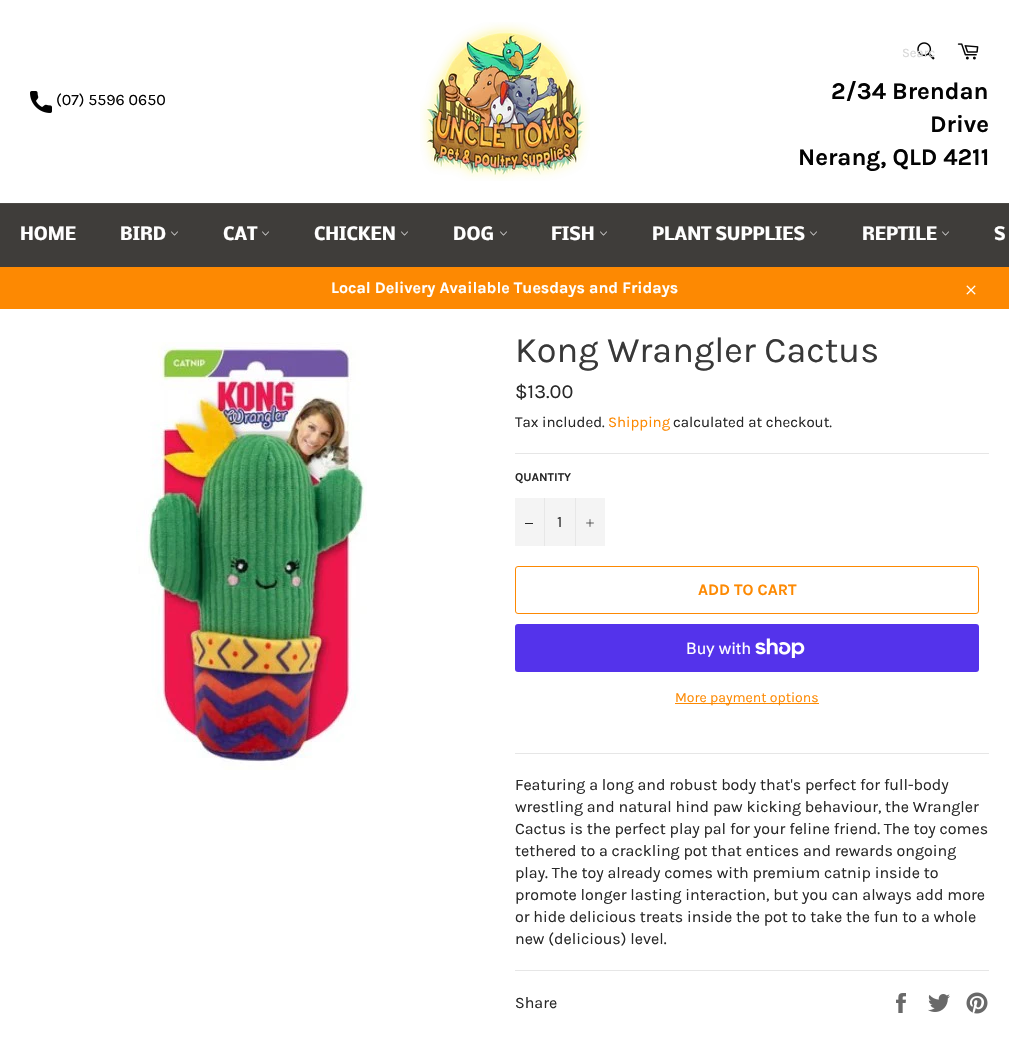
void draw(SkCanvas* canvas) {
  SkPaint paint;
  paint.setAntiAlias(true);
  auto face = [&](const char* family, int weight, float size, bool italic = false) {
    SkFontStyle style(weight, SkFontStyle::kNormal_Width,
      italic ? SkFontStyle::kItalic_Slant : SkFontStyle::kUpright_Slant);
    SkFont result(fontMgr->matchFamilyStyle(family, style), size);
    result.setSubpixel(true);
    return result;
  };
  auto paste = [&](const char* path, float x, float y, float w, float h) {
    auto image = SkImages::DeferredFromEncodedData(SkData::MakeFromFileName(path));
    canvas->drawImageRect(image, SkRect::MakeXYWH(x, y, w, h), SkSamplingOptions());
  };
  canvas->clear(0xffffffff);
  paste("img/1.png", 30, 91, 22, 22);
  paste("img/2.png", 420, 22, 170, 159);
  paste("img/3.png", 917, 42, 18, 18);
  paste("img/4.png", 957, 43, 22, 17);
  paint.setColor(0xff3f3d3a);
  canvas->drawRect(SkRect::MakeXYWH(0, 204, 1009, 63), paint);
  paint.setColor(0xff4c4a46);
  canvas->drawRect(SkRect::MakeXYWH(0, 203, 1009, 1), paint);
  paste("img/5.png", 171, 231, 7, 5);
  paste("img/5.png", 262, 231, 7, 5);
  paste("img/5.png", 401, 231, 7, 5);
  paste("img/5.png", 500, 231, 7, 5);
  paste("img/5.png", 600, 231, 7, 5);
  paste("img/5.png", 810, 231, 7, 5);
  paste("img/5.png", 942, 231, 7, 5);
  paint.setColor(0xfffd8902);
  canvas->drawRect(SkRect::MakeXYWH(0, 267, 1009, 42), paint);
  paste("img/6.png", 966, 285, 10, 10);
  paste("img/7.png", 136, 342, 231, 428);
  {
    const struct { float x, y, w, h; SkColor color; } items[] = {
      {515, 453, 474, 1, 0xffe6e6e6},
      {515, 498, 90, 48, 0xfff4f4f4},
      {544, 498, 1, 48, 0xffe7e7e7},
      {525, 523, 8, 1, 0xff282828},
      {575, 498, 1, 48, 0xffe7e7e7},
    };
    for (auto [x, y, w, h, color] : items) {
      paint.setColor(color);
      canvas->drawRect(SkRect::MakeXYWH(x, y, w, h), paint);
    }
  }
  paste("img/8.png", 586, 519, 8, 8);
  paint.setStroke(true);
  paint.setStrokeWidth(1);
  paint.setColor(0xfffd8902);
  canvas->drawRoundRect(SkRect::MakeXYWH(515.5f, 566.5f, 463, 47), 2.5f, 2.5f, paint);
  paint.setStroke(false);
  paint.setColor(0xff5433eb);
  canvas->drawRoundRect(SkRect::MakeXYWH(515, 624, 464, 48), 3, 3, paint);
  paste("img/9.png", 755, 638, 50, 20);
  {
    const struct { float x, y, w, h; SkColor color; } items[] = {
      {675, 703, 144, 1, 0xfffd8902},
      {515, 753, 474, 1, 0xffe6e6e6},
      {515, 970, 474, 1, 0xffe6e6e6},
    };
    for (auto [x, y, w, h, color] : items) {
      paint.setColor(color);
      canvas->drawRect(SkRect::MakeXYWH(x, y, w, h), paint);
    }
  }
  paste("img/10.png", 896, 993, 10, 20);
  paste("img/11.png", 928, 994, 22, 18);
  paste("img/12.png", 966, 992, 22, 22);
  auto f0 = face("Karla", 400, 16);
  paint.setColor(0xff030303);
  canvas->drawString("(07) 5596 0650", 56, 105, f0, paint);
  auto f1 = face("Karla", 400, 13);
  paint.setColor(0xffd7d7d7);
  canvas->drawString("Searc", 902, 57, f1, paint);
  auto f2 = face("Karla", 700, 24);
  paint.setColor(0xff030303);
  {
    const struct { const char* s; float x, y; } items[] = {
      {"2/34 Brendan", 831, 99},
      {"Drive", 930, 132},
      {"Nerang, QLD 4211", 798, 165},
    };
    for (auto [s, x, y] : items) {
      canvas->drawString(s, x, y, f2, paint);
    }
  }
  auto f3 = face("Nobile", 700, 17);
  paint.setColor(0xffffffff);
  {
    const struct { const char* s; float x, y; } items[] = {
      {"HOME", 20, 240},
      {"BIRD", 120, 240},
      {"CAT", 223, 240},
      {"CHICKEN", 314, 240},
      {"DOG", 453, 240},
      {"FISH", 551, 240},
      {"PLANT SUPPLIES", 652, 240},
      {"REPTILE", 862, 240},
      {"S", 994, 240},
    };
    for (auto [s, x, y] : items) {
      canvas->drawString(s, x, y, f3, paint);
    }
  }
  auto f4 = face("Karla", 700, 16);
  canvas->drawString("Local Delivery Available Tuesdays and Fridays", 331, 293, f4, paint);
  auto f5 = face("Karla", 400, 36);
  paint.setColor(0xff383838);
  canvas->drawString("Kong Wrangler Cactus", 515, 362, f5, paint);
  auto f6 = face("Karla", 400, 20);
  paint.setColor(0xff282828);
  canvas->drawString("$13.00", 515, 398, f6, paint);
  auto f7 = face("Karla", 400, 15);
  canvas->drawString("Tax included.", 515, 427, f7, paint);
  paint.setColor(0xfffd8902);
  canvas->drawString("Shipping", 608, 427, f7, paint);
  paint.setColor(0xff282828);
  canvas->drawString("calculated at checkout.", 673, 427, f7, paint);
  auto f8 = face("Karla", 700, 12);
  canvas->drawString("QUANTITY", 515, 481, f8, paint);
  paint.setColor(0xff383838);
  canvas->drawString("1", 557, 527, f0, paint);
  paint.setColor(0xfffd8902);
  canvas->drawString("ADD TO CART", 698, 595, f4, paint);
  auto f9 = face("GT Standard", 400, 16);
  paint.setColor(0xffffffff);
  canvas->drawString("Buy with", 686, 654, f9, paint);
  auto f10 = face("Karla", 400, 14);
  paint.setColor(0xfffd8902);
  canvas->drawString("More payment options", 675, 702, f10, paint);
  paint.setColor(0xff282828);
  {
    const struct { const char* s; float x, y; } items[] = {
      {"Featuring a long and robust body that's perfect for full-body", 515, 790},
      {"wrestling and natural hind paw kicking behaviour, the Wrangler", 515, 812},
      {"Cactus is the perfect play pal for your feline friend. The toy comes", 515, 834},
      {"tethered to a crackling pot that entices and rewards ongoing", 515, 856},
      {"play. The toy already comes with premium catnip inside to", 515, 878},
      {"promote longer lasting interaction, but you can always add more", 515, 900},
      {"or hide delicious treats inside the pot to take the fun to a whole", 515, 922},
      {"new (delicious) level.", 515, 944},
      {"Share", 515, 1008},
    };
    for (auto [s, x, y] : items) {
      canvas->drawString(s, x, y, f0, paint);
    }
  }
}
